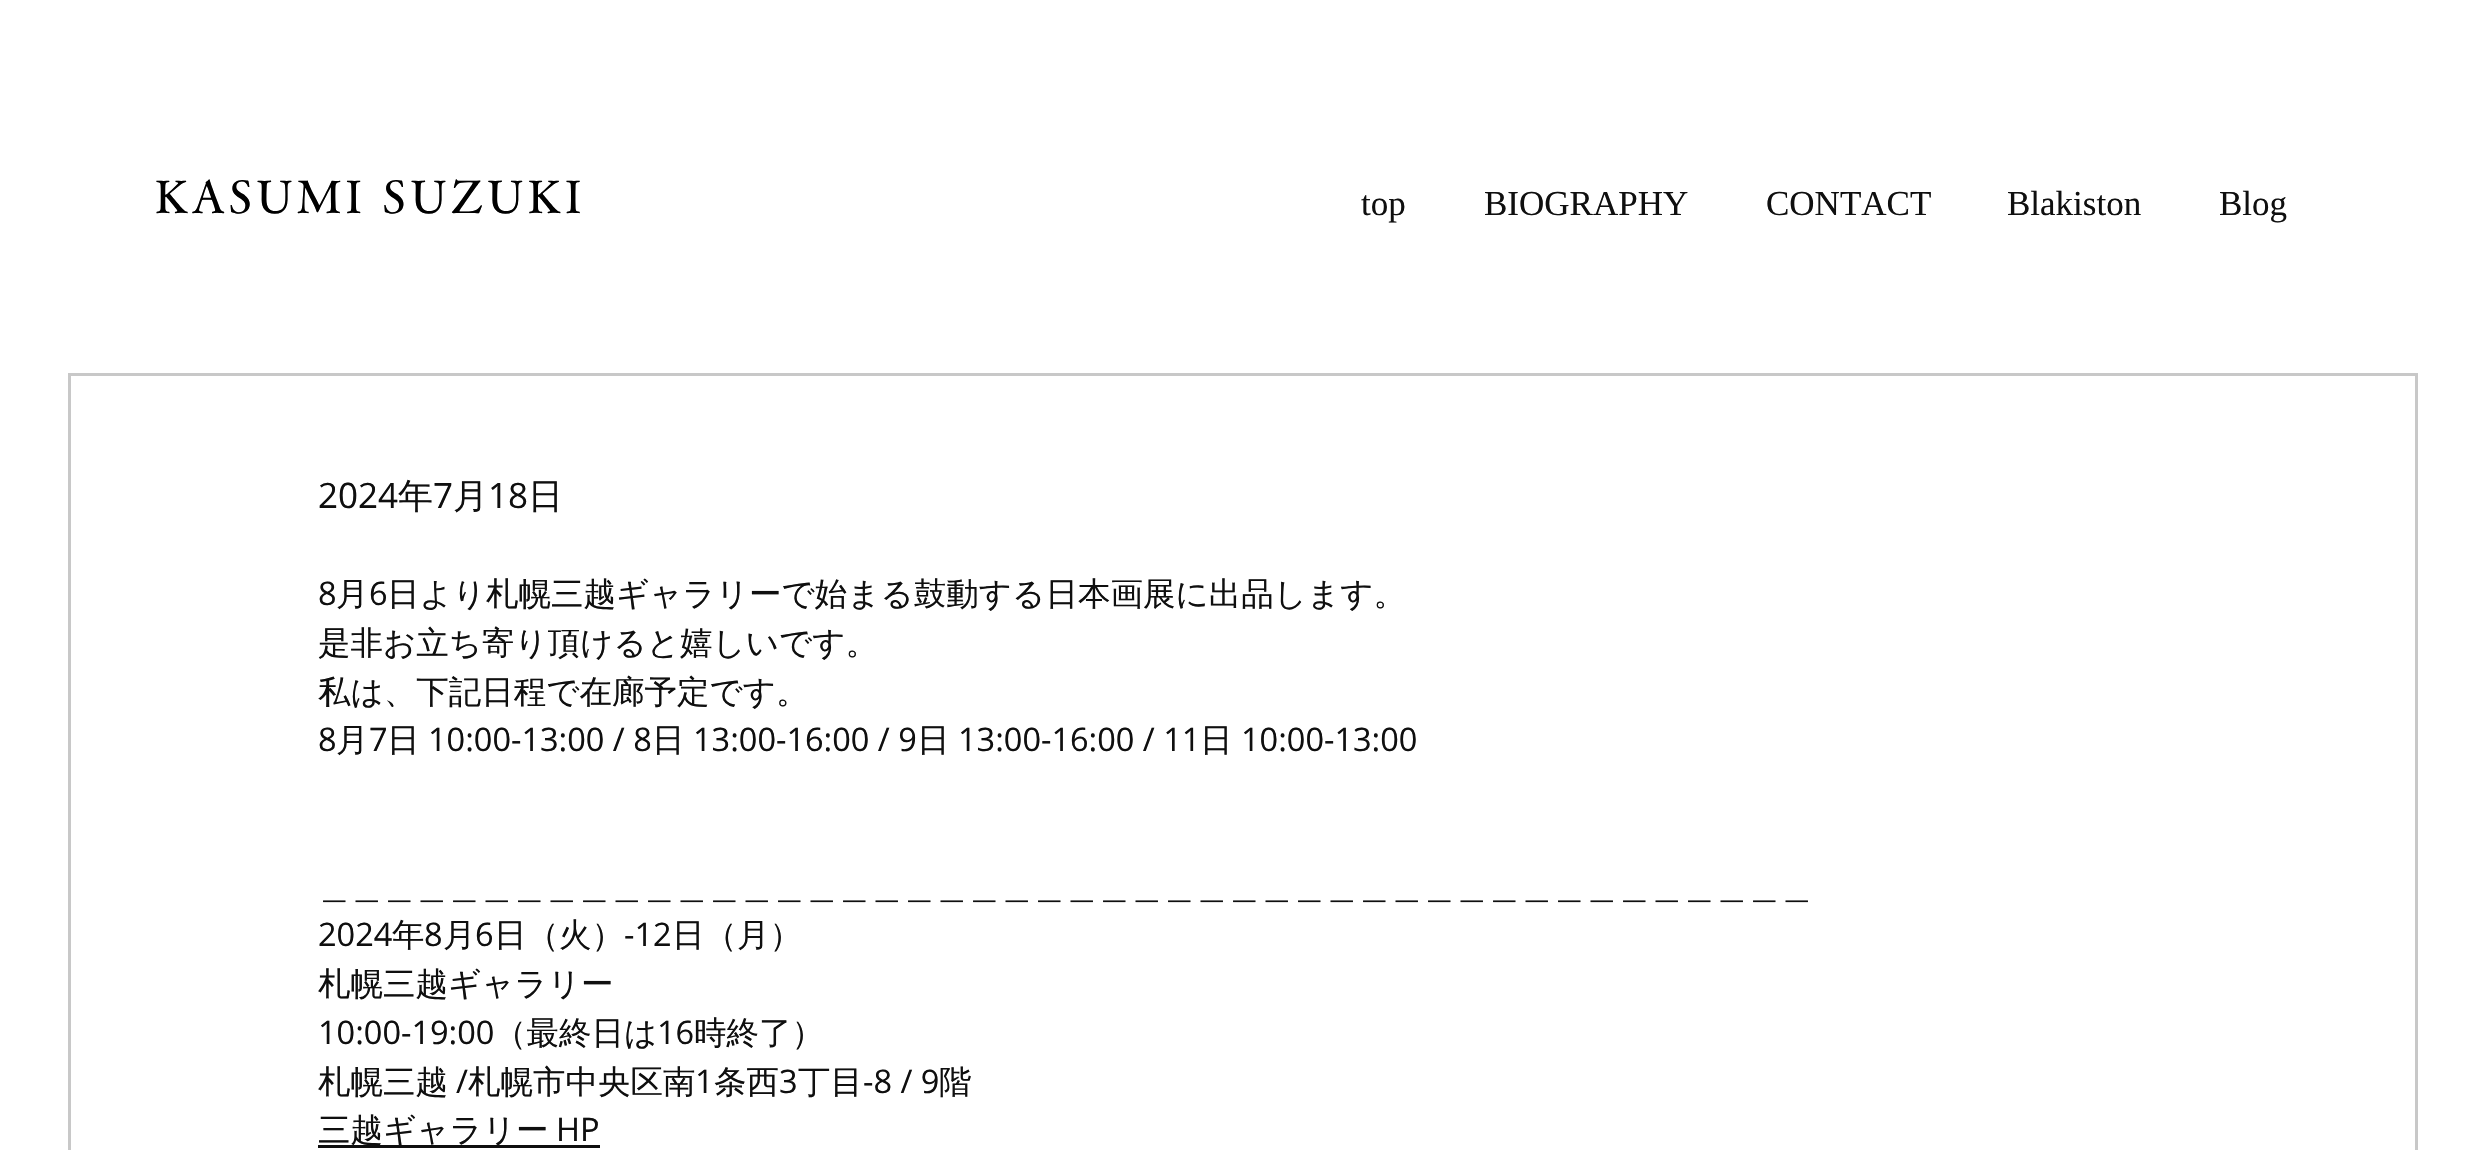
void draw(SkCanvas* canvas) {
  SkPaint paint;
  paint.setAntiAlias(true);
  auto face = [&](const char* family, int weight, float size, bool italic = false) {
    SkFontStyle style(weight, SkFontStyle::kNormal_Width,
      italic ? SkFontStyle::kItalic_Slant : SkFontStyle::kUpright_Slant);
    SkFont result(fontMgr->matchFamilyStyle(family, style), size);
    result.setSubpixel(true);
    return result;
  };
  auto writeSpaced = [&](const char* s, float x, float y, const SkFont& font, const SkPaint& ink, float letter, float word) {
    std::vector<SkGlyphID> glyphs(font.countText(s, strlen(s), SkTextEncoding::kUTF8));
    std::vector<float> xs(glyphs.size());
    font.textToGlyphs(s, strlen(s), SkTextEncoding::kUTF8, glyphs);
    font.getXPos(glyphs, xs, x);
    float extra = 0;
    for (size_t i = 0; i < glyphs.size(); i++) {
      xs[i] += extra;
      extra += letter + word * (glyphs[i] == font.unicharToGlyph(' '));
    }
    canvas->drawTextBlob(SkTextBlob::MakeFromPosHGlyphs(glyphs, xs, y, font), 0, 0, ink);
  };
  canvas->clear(0xffffffff);
  paint.setStroke(true);
  paint.setStrokeWidth(3);
  paint.setColor(0xffc8c8c8);
  canvas->drawRect(SkRect::MakeXYWH(69.5f, 374.5f, 2347, 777), paint);
  paint.setStroke(false);
  paint.setColor(0xff0f0f0f);
  canvas->drawRect(SkRect::MakeXYWH(318, 1145, 282, 3), paint);
  auto f0 = face("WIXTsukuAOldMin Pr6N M", 500, 45);
  paint.setColor(0xff000000);
  writeSpaced("KASUMI SUZUKI", 155, 213, f0, paint, 4.5f, 0);
  auto f1 = face("Liberation Serif", 400, 35);
  paint.setColor(0xff0f0f0f);
  {
    const struct { const char* s; float x, y; } items[] = {
      {"top", 1361, 215},
      {"BIOGRAPHY", 1484, 215},
      {"CONTACT", 1766, 215},
      {"Blakiston", 2007, 215},
      {"Blog", 2219, 215},
    };
    for (auto [s, x, y] : items) {
      canvas->drawString(s, x, y, f1, paint);
    }
  }
  auto f2 = face("Open Sans", 400, 35);
  canvas->drawString("2024", 318, 508, f2, paint);
  auto f3 = face("WenQuanYi Zen Hei", 500, 35);
  canvas->drawString("年", 398, 508, f3, paint);
  canvas->drawString("7", 433, 508, f2, paint);
  canvas->drawString("月", 453, 508, f3, paint);
  canvas->drawString("18", 488, 508, f2, paint);
  canvas->drawString("日", 528, 508, f3, paint);
  auto f4 = face("Open Sans", 400, 32.5f);
  canvas->drawString("8", 318, 605, f4, paint);
  auto f5 = face("WenQuanYi Zen Hei", 500, 32.5f);
  canvas->drawString("月", 336, 605, f5, paint);
  canvas->drawString("6", 369, 605, f4, paint);
  {
    const struct { const char* s; float x, y; } items[] = {
      {"日より札幌三越ギャラリーで始まる鼓動する日本画展に出品します。", 387, 605},
      {"是非お立ち寄り頂けると嬉しいです。", 318, 654},
      {"私は、下記日程で在廊予定です。", 318, 703},
    };
    for (auto [s, x, y] : items) {
      canvas->drawString(s, x, y, f5, paint);
    }
  }
  canvas->drawString("8", 318, 751, f4, paint);
  canvas->drawString("月", 336, 751, f5, paint);
  canvas->drawString("7", 369, 751, f4, paint);
  canvas->drawString("日", 387, 751, f5, paint);
  canvas->drawString("10:00-13:00 / 8", 428, 751, f4, paint);
  canvas->drawString("日", 652, 751, f5, paint);
  canvas->drawString("13:00-16:00 / 9", 693, 751, f4, paint);
  canvas->drawString("日", 917, 751, f5, paint);
  canvas->drawString("13:00-16:00 / 11", 958, 751, f4, paint);
  canvas->drawString("日", 1200, 751, f5, paint);
  canvas->drawString("10:00-13:00", 1241, 751, f4, paint);
  canvas->drawString("＿＿＿＿＿＿＿＿＿＿＿＿＿＿＿＿＿＿＿＿＿＿＿＿＿＿＿＿＿＿＿＿＿＿＿＿＿＿＿＿＿＿＿＿＿＿", 318, 898, f5, paint);
  canvas->drawString("2024", 318, 946, f4, paint);
  canvas->drawString("年", 392, 946, f5, paint);
  canvas->drawString("8", 424, 946, f4, paint);
  canvas->drawString("月", 443, 946, f5, paint);
  canvas->drawString("6", 475, 946, f4, paint);
  canvas->drawString("日（火）", 494, 946, f5, paint);
  canvas->drawString("-12", 624, 946, f4, paint);
  canvas->drawString("日（月）", 672, 946, f5, paint);
  canvas->drawString("札幌三越ギャラリー", 318, 995, f5, paint);
  canvas->drawString("10:00-19:00", 318, 1044, f4, paint);
  canvas->drawString("（最終日は", 494, 1044, f5, paint);
  canvas->drawString("16", 657, 1044, f4, paint);
  canvas->drawString("時終了）", 694, 1044, f5, paint);
  canvas->drawString("札幌三越", 318, 1093, f5, paint);
  canvas->drawString("/", 456, 1093, f4, paint);
  canvas->drawString("札幌市中央区南", 468, 1093, f5, paint);
  canvas->drawString("1", 695, 1093, f4, paint);
  canvas->drawString("条西", 714, 1093, f5, paint);
  canvas->drawString("3", 779, 1093, f4, paint);
  canvas->drawString("丁目", 798, 1093, f5, paint);
  canvas->drawString("-8 / 9", 863, 1093, f4, paint);
  canvas->drawString("階", 939, 1093, f5, paint);
  canvas->drawString("三越ギャラリー", 318, 1141, f5, paint);
  canvas->drawString("HP", 556, 1141, f4, paint);
}
